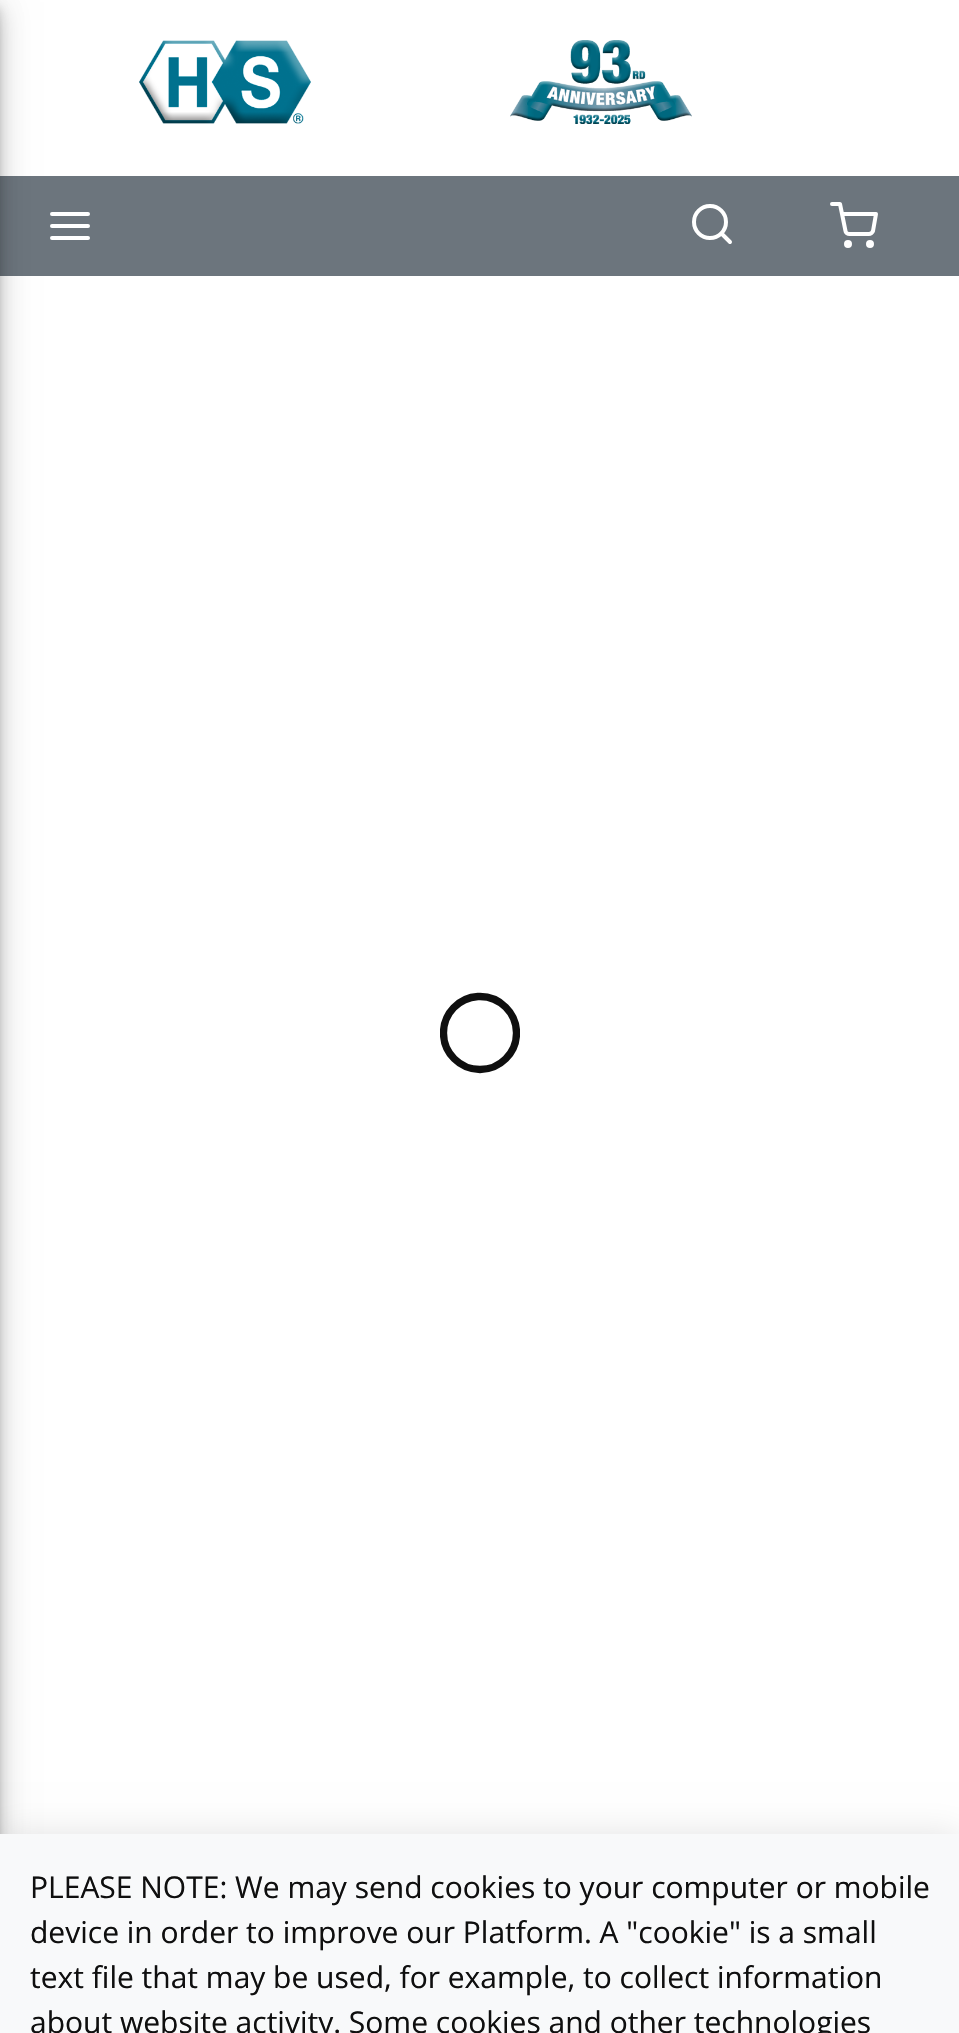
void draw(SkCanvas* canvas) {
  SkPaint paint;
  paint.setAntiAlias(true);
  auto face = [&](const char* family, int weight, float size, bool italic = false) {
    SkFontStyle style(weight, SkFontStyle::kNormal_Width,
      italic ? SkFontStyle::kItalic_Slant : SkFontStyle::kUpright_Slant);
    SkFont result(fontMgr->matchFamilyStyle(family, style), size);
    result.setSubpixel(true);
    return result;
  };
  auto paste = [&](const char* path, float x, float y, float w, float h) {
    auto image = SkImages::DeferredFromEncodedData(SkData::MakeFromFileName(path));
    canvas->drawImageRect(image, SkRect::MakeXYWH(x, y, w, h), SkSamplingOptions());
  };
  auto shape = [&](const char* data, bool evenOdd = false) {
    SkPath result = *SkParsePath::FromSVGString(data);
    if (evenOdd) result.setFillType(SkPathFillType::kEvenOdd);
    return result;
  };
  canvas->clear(0xffffffff);
  paint.setColor(0xff6c757d);
  canvas->drawRect(SkRect::MakeXYWH(0, 176, 959, 100), paint);
  paint.setStroke(true);
  paint.setStrokeWidth(4);
  paint.setStrokeCap(SkPaint::kRound_Cap);
  paint.setStrokeJoin(SkPaint::kRound_Join);
  paint.setColor(0xffffffff);
  canvas->drawPath(shape("M52 226H88M52 214H88M52 238H88"), paint);
  paint.setStroke(false);
  paint.setColor(0x1f000000);
  paint.setMaskFilter(SkMaskFilter::MakeBlur(kNormal_SkBlurStyle, 18));
  canvas->drawRect(SkRect::MakeXYWH(-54, 2, 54, 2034), paint);
  paint.setMaskFilter(nullptr);
  paint.setColor(0x24000000);
  paint.setMaskFilter(SkMaskFilter::MakeBlur(kNormal_SkBlurStyle, 10));
  canvas->drawRect(SkRect::MakeXYWH(-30, 12, 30, 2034), paint);
  paint.setMaskFilter(nullptr);
  paint.setColor(0x33000000);
  paint.setMaskFilter(SkMaskFilter::MakeBlur(kNormal_SkBlurStyle, 5));
  canvas->drawRect(SkRect::MakeXYWH(-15, 8, 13, 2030), paint);
  paint.setMaskFilter(nullptr);
  paint.setStroke(true);
  paint.setStrokeCap(SkPaint::kButt_Cap);
  paint.setStrokeJoin(SkPaint::kMiter_Join);
  paint.setColor(0xffffffff);
  canvas->drawCircle(710, 222, 16, paint);
  paint.setStrokeCap(SkPaint::kRound_Cap);
  paint.setStrokeJoin(SkPaint::kRound_Join);
  canvas->drawPath(shape("M730 242L721.5 233.5"), paint);
  paint.setStrokeCap(SkPaint::kButt_Cap);
  paint.setStrokeJoin(SkPaint::kMiter_Join);
  canvas->drawCircle(848, 244, 2, paint);
  canvas->drawCircle(870, 244, 2, paint);
  paint.setStrokeCap(SkPaint::kRound_Cap);
  paint.setStrokeJoin(SkPaint::kRound_Join);
  canvas->drawPath(shape("M832 204H840L845.5 231C845.5 232.5 847.5 234 849.5 234H869C870.5 234 872.5 232.5 873 231L876 214H842"), paint);
  paste("img/1.png", 139, 40, 172, 84);
  paste("img/2.png", 510, 40, 182, 84);
  canvas->save();
  canvas->clipRect(SkRect::MakeXYWH(440, 316, 80, 1434));
  paint.setStrokeWidth(7.3f);
  paint.setStrokeJoin(SkPaint::kMiter_Join);
  paint.setColor(0xff0f0f0f);
  canvas->drawPath(shape("M480 996.5C500 996.5 516.5 1013 516.5 1033C516.5 1053 500 1069.5 480 1069.5C460 1069.5 443.5 1053 443.5 1033C443.5 1013.5 459 997.5 478 996.5"), paint);
  canvas->restore();
  paint.setStroke(false);
  paint.setColor(0x1f000000);
  paint.setMaskFilter(SkMaskFilter::MakeBlur(kNormal_SkBlurStyle, 18));
  canvas->drawRect(SkRect::MakeXYWH(0, 1836, 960, 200), paint);
  paint.setMaskFilter(nullptr);
  paint.setColor(0xfff8f9fa);
  canvas->drawRect(SkRect::MakeXYWH(0, 1834, 959, 199), paint);
  auto f0 = face("Open Sans", 400, 30);
  paint.setColor(0xff0f0f0f);
  {
    const struct { const char* s; float x, y; } items[] = {
      {"PLEASE NOTE: We may send cookies to your computer or mobile", 30, 1898},
      {"device in order to improve our Platform. A \"cookie\" is a small", 30, 1943},
      {"text file that may be used, for example, to collect information", 30, 1988},
      {"about website activity. Some cookies and other technologies", 30, 2033},
    };
    for (auto [s, x, y] : items) {
      canvas->drawString(s, x, y, f0, paint);
    }
  }
}
